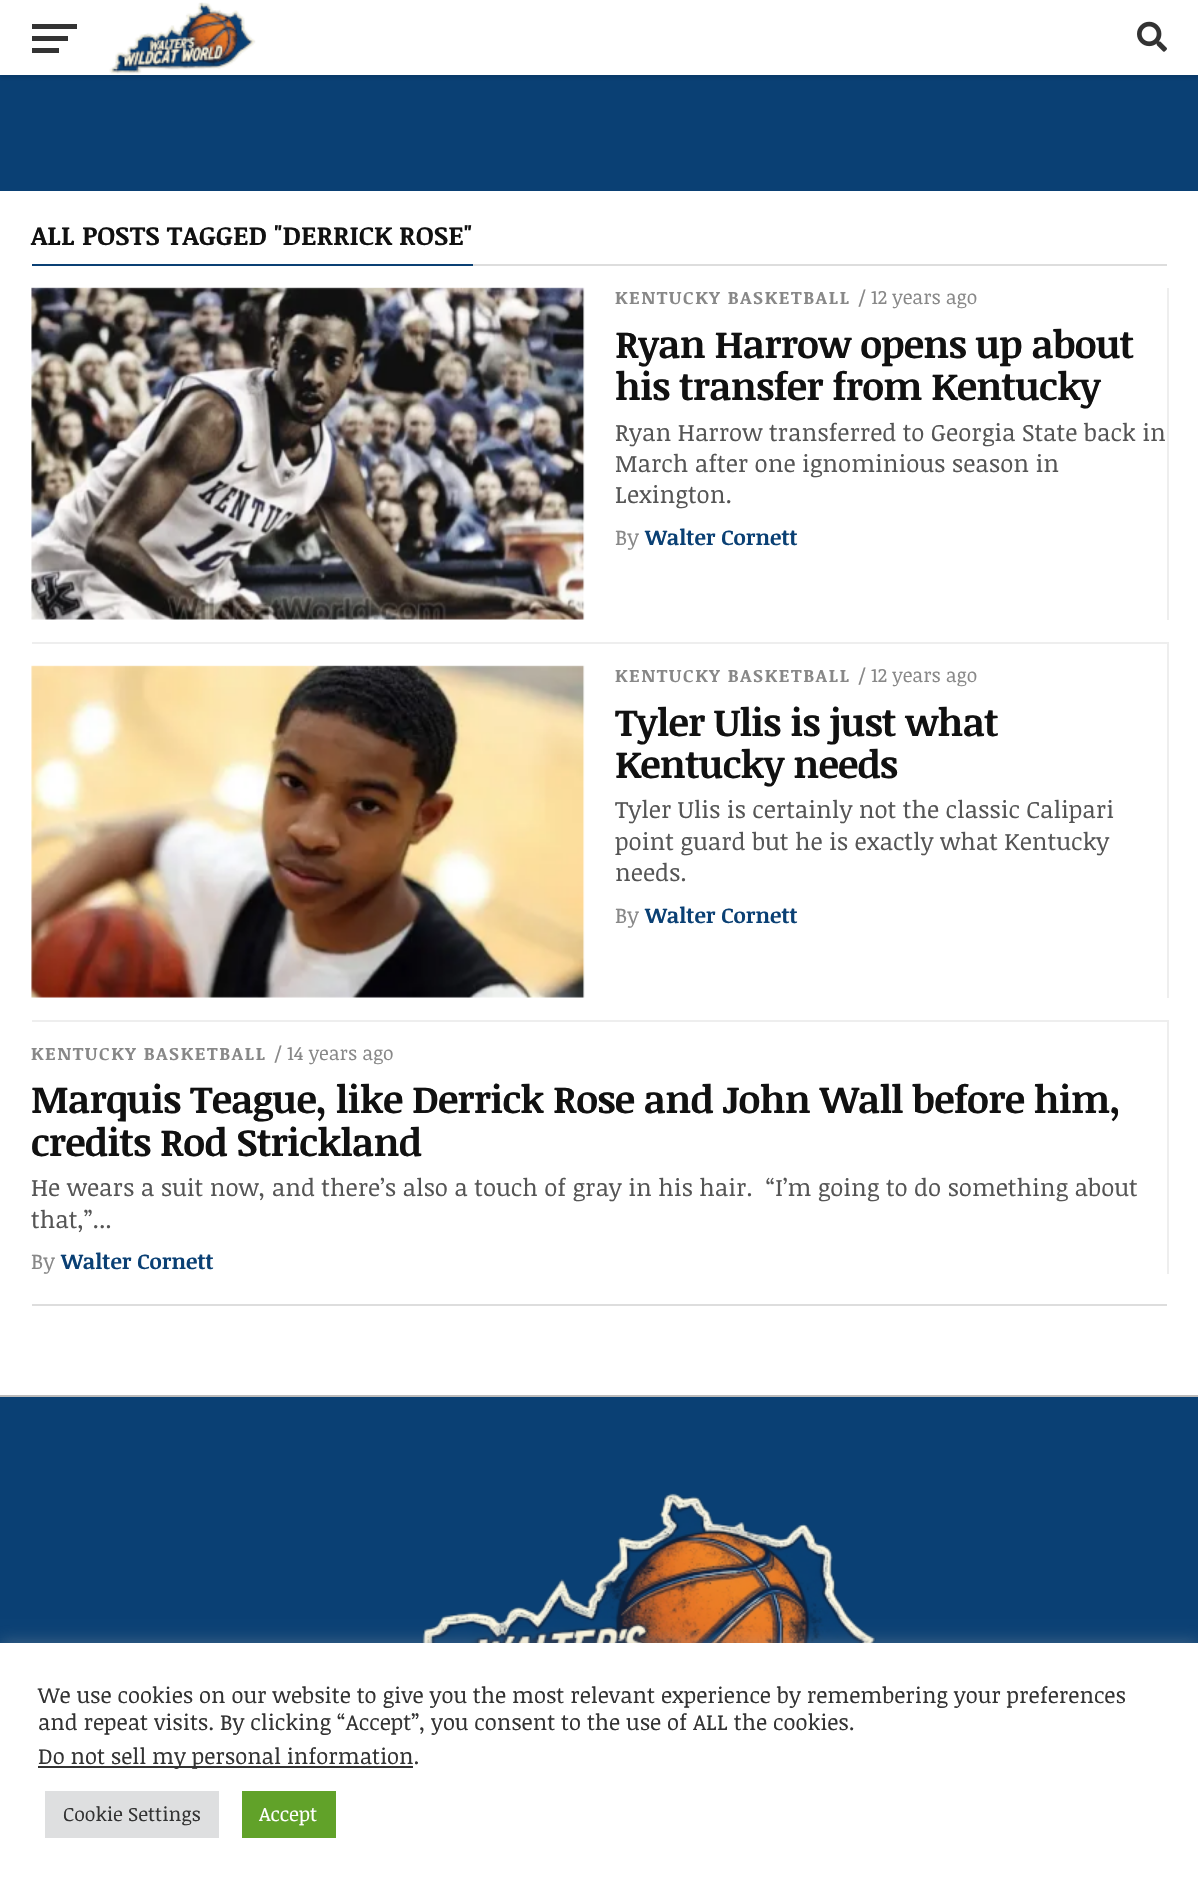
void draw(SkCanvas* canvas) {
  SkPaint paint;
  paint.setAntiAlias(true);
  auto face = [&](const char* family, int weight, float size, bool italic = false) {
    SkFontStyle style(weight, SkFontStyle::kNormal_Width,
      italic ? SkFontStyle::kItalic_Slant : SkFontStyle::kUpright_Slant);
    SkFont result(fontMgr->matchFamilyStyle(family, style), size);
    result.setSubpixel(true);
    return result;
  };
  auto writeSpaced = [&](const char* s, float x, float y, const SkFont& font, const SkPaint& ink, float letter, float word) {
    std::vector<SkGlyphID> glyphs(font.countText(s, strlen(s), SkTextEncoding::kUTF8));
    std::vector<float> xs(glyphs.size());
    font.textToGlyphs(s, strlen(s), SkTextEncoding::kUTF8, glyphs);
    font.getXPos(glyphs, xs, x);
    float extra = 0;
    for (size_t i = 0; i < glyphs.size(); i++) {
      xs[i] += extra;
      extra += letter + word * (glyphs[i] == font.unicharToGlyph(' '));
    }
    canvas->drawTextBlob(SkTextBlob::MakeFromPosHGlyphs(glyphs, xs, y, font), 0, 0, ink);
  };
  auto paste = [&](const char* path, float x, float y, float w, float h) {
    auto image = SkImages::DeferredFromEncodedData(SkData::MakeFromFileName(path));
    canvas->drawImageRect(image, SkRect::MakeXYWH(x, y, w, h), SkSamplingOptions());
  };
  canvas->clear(0xff0a4074);
  paint.setColor(0x1a000000);
  paint.setMaskFilter(SkMaskFilter::MakeBlur(kNormal_SkBlurStyle, 1.5f));
  canvas->drawRect(SkRect::MakeXYWH(0, 3, 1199, 75), paint);
  paint.setMaskFilter(nullptr);
  {
    const struct { float x, y, w, h; SkColor color; } items[] = {
      {0, 0, 1198, 75, 0xffffffff},
      {32, 24, 45, 5, 0xff333333},
      {32, 36, 36, 5, 0xff333333},
      {32, 48, 27, 5, 0xff333333},
    };
    for (auto [x, y, w, h, color] : items) {
      paint.setColor(color);
      canvas->drawRect(SkRect::MakeXYWH(x, y, w, h), paint);
    }
  }
  paste("img/1.png", 109, 2, 147, 72);
  paste("img/2.png", 1137, 21, 30, 31);
  {
    const struct { float x, y, w, h; SkColor color; } items[] = {
      {0, 191, 1198, 1204, 0xffffffff},
      {0, 1395, 1198, 2, 0xffbbbbbb},
      {473, 264, 694, 2, 0xffdddddd},
      {32, 264, 441, 2, 0xff0a4074},
      {1167, 288, 2, 332, 0xffeeeeee},
    };
    for (auto [x, y, w, h, color] : items) {
      paint.setColor(color);
      canvas->drawRect(SkRect::MakeXYWH(x, y, w, h), paint);
    }
  }
  paste("img/3.png", 31, 287, 554, 333);
  canvas->drawRect(SkRect::MakeXYWH(32, 642, 1137, 2), paint);
  canvas->drawRect(SkRect::MakeXYWH(1167, 642, 2, 356), paint);
  paste("img/4.png", 31, 665, 554, 333);
  {
    const struct { float x, y, w, h; SkColor color; } items[] = {
      {32, 1020, 1137, 2, 0xffeeeeee},
      {1167, 1020, 2, 254, 0xffeeeeee},
      {32, 1304, 1135, 2, 0xffdddddd},
    };
    for (auto [x, y, w, h, color] : items) {
      paint.setColor(color);
      canvas->drawRect(SkRect::MakeXYWH(x, y, w, h), paint);
    }
  }
  paste("img/5.png", 421, 1493, 455, 150);
  paint.setColor(0x4dacabab);
  paint.setMaskFilter(SkMaskFilter::MakeBlur(kNormal_SkBlurStyle, 7.5f));
  canvas->drawRect(SkRect::MakeXYWH(0, 1641, 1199, 240), paint);
  paint.setMaskFilter(nullptr);
  {
    const struct { float x, y, w, h; SkColor color; } items[] = {
      {0, 1643, 1198, 239, 0xffffffff},
      {38, 1766, 375, 2, 0xff333333},
      {45, 1791, 174, 47, 0xffdedfe0},
      {242, 1791, 94, 47, 0xff61a229},
    };
    for (auto [x, y, w, h, color] : items) {
      paint.setColor(color);
      canvas->drawRect(SkRect::MakeXYWH(x, y, w, h), paint);
    }
  }
  auto f0 = face("Noticia Text", 700, 26.4f);
  paint.setColor(0xff111111);
  canvas->drawString("ALL POSTS TAGGED \"DERRICK ROSE\"", 31, 245, f0, paint);
  auto f1 = face("Noticia Text", 700, 18);
  paint.setColor(0xff888888);
  writeSpaced("KENTUCKY BASKETBALL", 615, 304, f1, paint, 1.7f, 0);
  auto f2 = face("Noticia Text", 400, 19.25f);
  canvas->drawString("/ 12 years ago", 858, 304, f2, paint);
  auto f3 = face("Noticia Text", 700, 38.4f);
  paint.setColor(0xff111111);
  writeSpaced("Ryan Harrow opens up about", 615, 358, f3, paint, -0.77f, 0);
  writeSpaced("his transfer from Kentucky", 615, 400, f3, paint, -0.77f, 0);
  auto f4 = face("Noticia Text", 400, 24);
  paint.setColor(0xff555555);
  {
    const struct { const char* s; float x, y; } items[] = {
      {"Ryan Harrow transferred to Georgia State back in", 615, 441},
      {"March after one ignominious season in", 615, 472},
      {"Lexington.", 615, 503},
    };
    for (auto [s, x, y] : items) {
      canvas->drawString(s, x, y, f4, paint);
    }
  }
  auto f5 = face("Noticia Text", 400, 21.5f);
  paint.setColor(0xff888888);
  canvas->drawString("By", 615, 545, f5, paint);
  auto f6 = face("Noticia Text", 700, 21.5f);
  paint.setColor(0xff0a4074);
  canvas->drawString("Walter Cornett", 645, 545, f6, paint);
  paint.setColor(0xff888888);
  writeSpaced("KENTUCKY BASKETBALL", 615, 682, f1, paint, 1.7f, 0);
  canvas->drawString("/ 12 years ago", 858, 682, f2, paint);
  paint.setColor(0xff111111);
  writeSpaced("Tyler Ulis is just what", 615, 736, f3, paint, -0.77f, 0);
  writeSpaced("Kentucky needs", 615, 778, f3, paint, -0.77f, 0);
  paint.setColor(0xff555555);
  {
    const struct { const char* s; float x, y; } items[] = {
      {"Tyler Ulis is certainly not the classic Calipari", 615, 818},
      {"point guard but he is exactly what Kentucky", 615, 850},
      {"needs.", 615, 881},
    };
    for (auto [s, x, y] : items) {
      canvas->drawString(s, x, y, f4, paint);
    }
  }
  paint.setColor(0xff888888);
  canvas->drawString("By", 615, 923, f5, paint);
  paint.setColor(0xff0a4074);
  canvas->drawString("Walter Cornett", 645, 923, f6, paint);
  paint.setColor(0xff888888);
  writeSpaced("KENTUCKY BASKETBALL", 31, 1060, f1, paint, 1.7f, 0);
  canvas->drawString("/ 14 years ago", 274, 1060, f2, paint);
  paint.setColor(0xff111111);
  writeSpaced("Marquis Teague, like Derrick Rose and John Wall before him,", 31, 1113, f3, paint, -0.77f, 0);
  writeSpaced("credits Rod Strickland", 31, 1156, f3, paint, -0.77f, 0);
  paint.setColor(0xff555555);
  canvas->drawString("He wears a suit now, and there’s also a touch of gray in his hair.  “I’m going to do something about", 31, 1196, f4, paint);
  canvas->drawString("that,”...", 31, 1228, f4, paint);
  paint.setColor(0xff888888);
  canvas->drawString("By", 31, 1269, f5, paint);
  paint.setColor(0xff0a4074);
  canvas->drawString("Walter Cornett", 61, 1269, f6, paint);
  auto f7 = face("Noticia Text", 400, 22);
  paint.setColor(0xff333333);
  {
    const struct { const char* s; float x, y; } items[] = {
      {"We use cookies on our website to give you the most relevant experience by remembering your preferences", 38, 1703},
      {"and repeat visits. By clicking “Accept”, you consent to the use of ALL the cookies.", 38, 1730},
      {"Do not sell my personal information.", 38, 1764},
    };
    for (auto [s, x, y] : items) {
      canvas->drawString(s, x, y, f7, paint);
    }
  }
  auto f8 = face("Noticia Text", 400, 19.5f);
  canvas->drawString("Cookie Settings", 63, 1821, f8, paint);
  paint.setColor(0xffffffff);
  canvas->drawString("Accept", 259, 1821, f8, paint);
}
